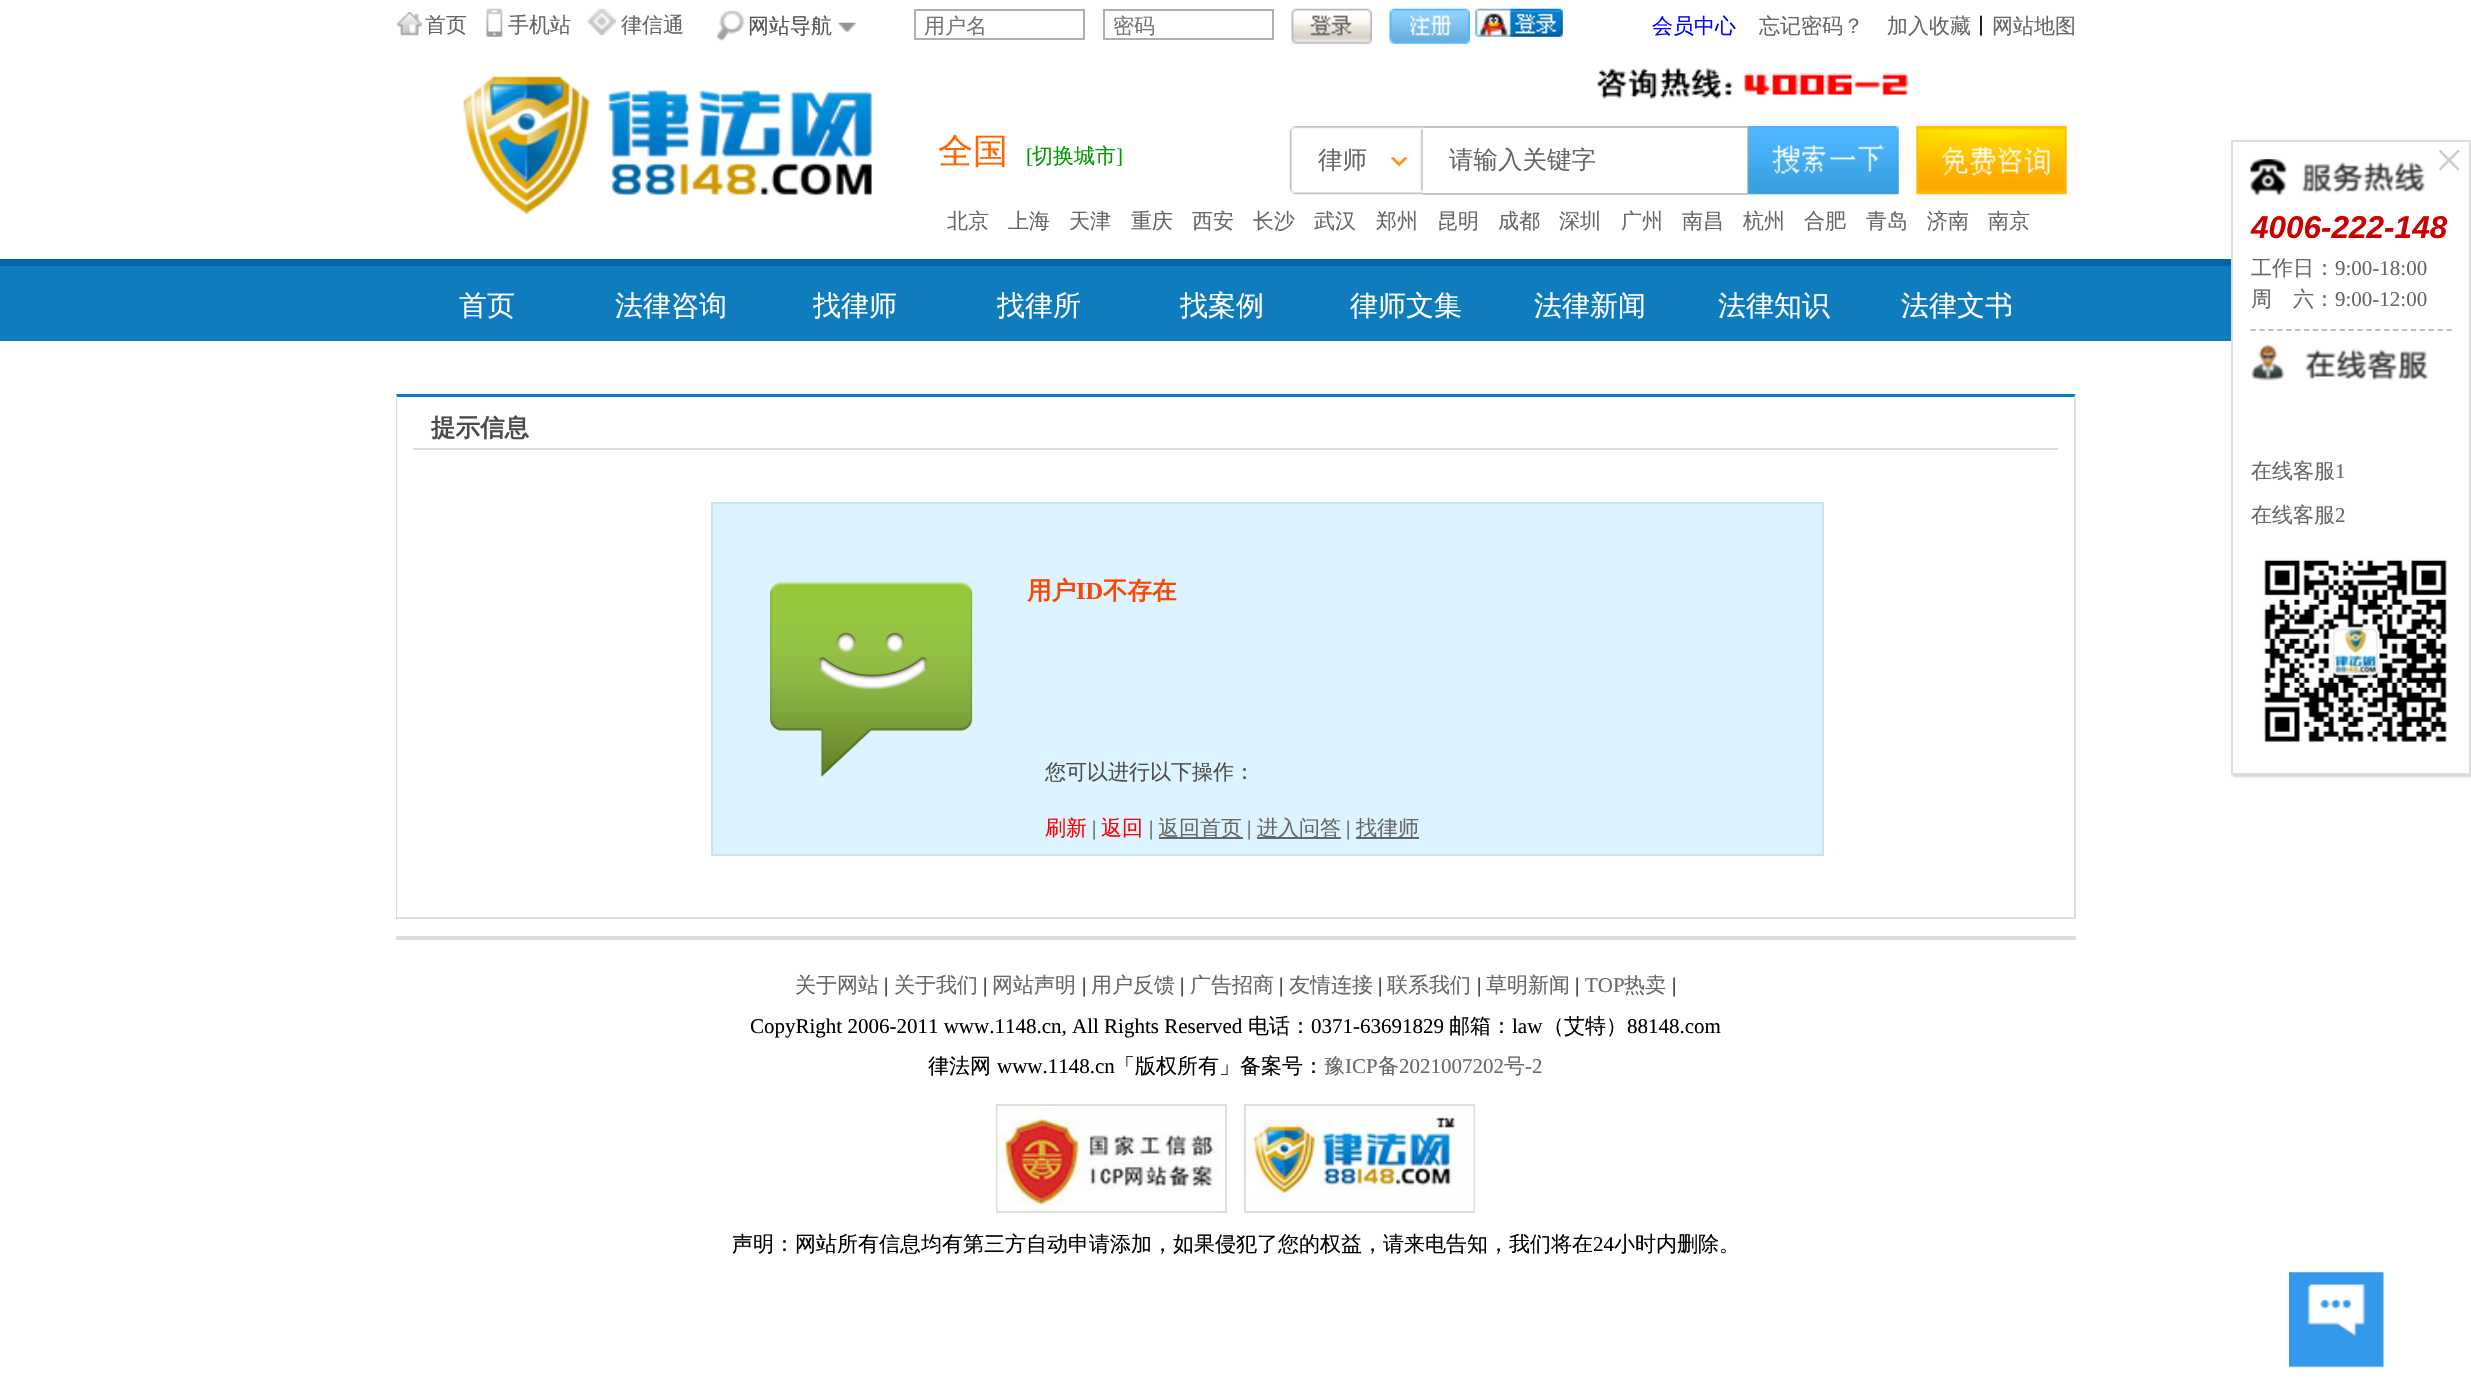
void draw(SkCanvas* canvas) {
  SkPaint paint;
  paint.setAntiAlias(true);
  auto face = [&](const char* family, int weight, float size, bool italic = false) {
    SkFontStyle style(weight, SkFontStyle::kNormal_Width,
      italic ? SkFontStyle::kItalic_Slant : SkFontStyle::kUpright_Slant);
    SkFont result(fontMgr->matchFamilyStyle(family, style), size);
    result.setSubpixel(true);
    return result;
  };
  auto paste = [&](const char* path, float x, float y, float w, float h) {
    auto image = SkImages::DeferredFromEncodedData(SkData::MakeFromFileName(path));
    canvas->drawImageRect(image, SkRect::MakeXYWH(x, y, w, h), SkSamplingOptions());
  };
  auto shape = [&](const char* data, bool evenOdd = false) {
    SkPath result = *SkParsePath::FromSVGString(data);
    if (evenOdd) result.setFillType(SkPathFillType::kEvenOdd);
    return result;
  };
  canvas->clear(0xffffffff);
  paste("img/1.png", 396, 11, 27, 25);
  paste("img/2.png", 486, 8, 17, 29);
  paste("img/3.png", 587, 8, 29, 27);
  paste("img/4.png", 716, 11, 29, 30);
  paste("img/5.png", 838, 22, 18, 10);
  paint.setStroke(true);
  paint.setStrokeWidth(2);
  paint.setColor(0xffafafad);
  canvas->drawRect(SkRect::MakeXYWH(915, 10, 169, 29), paint);
  canvas->drawRect(SkRect::MakeXYWH(1104, 10, 169, 29), paint);
  paste("img/6.png", 1291, 8, 81, 36);
  paste("img/7.png", 1389, 8, 81, 36);
  paste("img/8.png", 1475, 8, 88, 29);
  paste("img/9.png", 463, 76, 409, 138);
  paste("img/10.png", 1597, 67, 311, 32);
  paste("img/11.png", 1289, 126, 134, 69);
  paint.setStroke(false);
  {
    const struct { float x, y, w, h; SkColor color; } items[] = {
      {1423, 126, 325, 2, 0xffc1c1c1},
      {1747, 126, 2, 68, 0xffc1c1c1},
      {1423, 193, 325, 2, 0xffc1c1c1},
    };
    for (auto [x, y, w, h, color] : items) {
      paint.setColor(color);
      canvas->drawRect(SkRect::MakeXYWH(x, y, w, h), paint);
    }
  }
  paste("img/12.png", 1748, 126, 151, 69);
  paste("img/13.png", 1916, 126, 151, 69);
  paint.setColor(0xff0f7cbd);
  canvas->drawRect(SkRect::MakeXYWH(0, 266, 2231, 75), paint);
  paint.setColor(0xff0266a2);
  canvas->drawRect(SkRect::MakeXYWH(0, 259, 2231, 7), paint);
  paint.setColor(0xffd4d4d4);
  paint.setMaskFilter(SkMaskFilter::MakeBlur(kNormal_SkBlurStyle, 1));
  canvas->drawRect(SkRect::MakeXYWH(2233, 142, 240, 635), paint);
  paint.setMaskFilter(nullptr);
  paint.setColor(0xffffffff);
  canvas->drawRect(SkRect::MakeXYWH(2232, 141, 238, 633), paint);
  paint.setStroke(true);
  paint.setColor(0xffdddddd);
  canvas->drawRect(SkRect::MakeXYWH(2232, 141, 238, 633), paint);
  paste("img/14.png", 2250, 159, 175, 37);
  paste("img/15.png", 2439, 150, 21, 21);
  paint.setStrokeWidth(1.8f);
  paint.setColor(0xffc0c0c0);
  paint.setPathEffect(SkDashPathEffect::Make({{5.25f, 3.66f}}, 0));
  canvas->drawPath(shape("M2250.5 330H2452"), paint);
  paint.setPathEffect(nullptr);
  paste("img/16.png", 2251, 344, 178, 37);
  paste("img/17.png", 2251, 547, 196, 195);
  paint.setStroke(false);
  paint.setColor(0xff0f7cbd);
  canvas->drawPath(shape("M396 394H2076L2074 397H397Z"), paint);
  paint.setColor(0xffdddddd);
  canvas->drawPath(shape("M2076 394V919L2074 917V397Z"), paint);
  canvas->drawRect(SkRect::MakeXYWH(396, 917, 1680, 2), paint);
  canvas->drawPath(shape("M396 919V394L397 397V917Z"), paint);
  canvas->drawRect(SkRect::MakeXYWH(413, 448, 1645, 2), paint);
  paint.setColor(0xffdcf4ff);
  canvas->drawRect(SkRect::MakeXYWH(712, 503, 1111, 352), paint);
  paint.setStroke(true);
  paint.setStrokeWidth(2);
  paint.setColor(0xffcfe2eb);
  canvas->drawRect(SkRect::MakeXYWH(712, 503, 1111, 352), paint);
  paste("img/18.png", 770, 581, 203, 196);
  paint.setStroke(false);
  {
    const struct { float x, y, w, h; SkColor color; } items[] = {
      {1159, 837, 84, 2, 0xff666666},
      {1257, 837, 84, 2, 0xff666666},
      {1356, 837, 63, 2, 0xff666666},
      {396, 936, 1680, 4, 0xffdedede},
    };
    for (auto [x, y, w, h, color] : items) {
      paint.setColor(color);
      canvas->drawRect(SkRect::MakeXYWH(x, y, w, h), paint);
    }
  }
  paint.setStroke(true);
  canvas->drawRect(SkRect::MakeXYWH(997, 1105, 229, 107), paint);
  canvas->drawRect(SkRect::MakeXYWH(1245, 1105, 229, 107), paint);
  paste("img/19.png", 997, 1106, 224, 105);
  paste("img/20.png", 1246, 1106, 228, 105);
  paste("img/21.png", 2289, 1272, 95, 96);
  auto f0 = face("WenQuanYi Zen Hei", 500, 21);
  paint.setStroke(false);
  paint.setColor(0xff666666);
  {
    const struct { const char* s; float x, y; } items[] = {
      {"首页", 425, 32},
      {"手机站", 508, 32},
      {"律信通", 621, 32},
    };
    for (auto [s, x, y] : items) {
      canvas->drawString(s, x, y, f0, paint);
    }
  }
  paint.setColor(0xff535353);
  canvas->drawString("网站导航", 748, 33, f0, paint);
  paint.setColor(0xff757575);
  canvas->drawString("用户名", 924, 33, f0, paint);
  canvas->drawString("密码", 1113, 33, f0, paint);
  paint.setColor(0xff0000ff);
  canvas->drawString("会员中心", 1652, 33, f0, paint);
  paint.setColor(0xff666666);
  canvas->drawString("忘记密码？", 1759, 33, f0, paint);
  canvas->drawString("加入收藏", 1887, 33, f0, paint);
  paint.setColor(0xff000000);
  canvas->drawString("丨", 1971, 33, f0, paint);
  paint.setColor(0xff666666);
  canvas->drawString("网站地图", 1992, 33, f0, paint);
  auto f1 = face("WenQuanYi Zen Hei", 500, 35);
  paint.setColor(0xffff6600);
  canvas->drawString("全国", 938, 163, f1, paint);
  auto f2 = face("Liberation Serif", 400, 21);
  paint.setColor(0xff009900);
  canvas->drawString("[", 1026, 163, f2, paint);
  canvas->drawString("切换城市", 1032, 163, f0, paint);
  canvas->drawString("]", 1116, 163, f2, paint);
  auto f3 = face("WenQuanYi Zen Hei", 500, 24.5f);
  paint.setColor(0xff666666);
  canvas->drawString("律师", 1318, 168, f3, paint);
  canvas->drawString("请输入关键字", 1449, 168, f3, paint);
  {
    const struct { const char* s; float x, y; } items[] = {
      {"北京", 947, 228},
      {"上海", 1008, 228},
      {"天津", 1069, 228},
      {"重庆", 1131, 228},
      {"西安", 1192, 228},
      {"长沙", 1253, 228},
      {"武汉", 1314, 228},
      {"郑州", 1376, 228},
      {"昆明", 1437, 228},
      {"成都", 1498, 228},
      {"深圳", 1559, 228},
      {"广州", 1621, 228},
      {"南昌", 1682, 228},
      {"杭州", 1743, 228},
      {"合肥", 1804, 228},
      {"青岛", 1866, 228},
      {"济南", 1927, 228},
      {"南京", 1988, 228},
    };
    for (auto [s, x, y] : items) {
      canvas->drawString(s, x, y, f0, paint);
    }
  }
  auto f4 = face("Liberation Sans", 700, 31.5f, true);
  paint.setColor(0xffcc0000);
  canvas->drawString("4006-222-148", 2251, 238, f4, paint);
  paint.setColor(0xff666666);
  canvas->drawString("工作日：", 2251, 275, f0, paint);
  canvas->drawString("9:00-18:00", 2335, 275, f2, paint);
  canvas->drawString("周　六：", 2251, 306, f0, paint);
  canvas->drawString("9:00-12:00", 2335, 306, f2, paint);
  canvas->drawString("在线客服", 2251, 478, f0, paint);
  canvas->drawString("1", 2335, 478, f2, paint);
  canvas->drawString("在线客服", 2251, 522, f0, paint);
  canvas->drawString("2", 2335, 522, f2, paint);
  auto f5 = face("WenQuanYi Zen Hei", 700, 24.5f);
  paint.setColor(0xff4b4b4b);
  canvas->drawString("提示信息", 431, 436, f5, paint);
  paint.setColor(0xffff4500);
  canvas->drawString("用户", 1027, 599, f5, paint);
  auto f6 = face("Liberation Serif", 700, 24.5f);
  canvas->drawString("ID", 1076, 599, f6, paint);
  canvas->drawString("不存在", 1103, 599, f5, paint);
  paint.setColor(0xff4b4b4b);
  canvas->drawString("您可以进行以下操作：", 1045, 779, f0, paint);
  paint.setColor(0xffff0000);
  canvas->drawString("刷新", 1045, 835, f0, paint);
  paint.setColor(0xff4b4b4b);
  canvas->drawString("|", 1092, 835, f2, paint);
  paint.setColor(0xffff0000);
  canvas->drawString("返回", 1101, 835, f0, paint);
  paint.setColor(0xff4b4b4b);
  canvas->drawString("|", 1149, 835, f2, paint);
  paint.setColor(0xff666666);
  canvas->drawString("返回首页", 1158, 835, f0, paint);
  paint.setColor(0xff4b4b4b);
  canvas->drawString("|", 1247, 835, f2, paint);
  paint.setColor(0xff666666);
  canvas->drawString("进入问答", 1257, 835, f0, paint);
  paint.setColor(0xff4b4b4b);
  canvas->drawString("|", 1346, 835, f2, paint);
  paint.setColor(0xff666666);
  canvas->drawString("找律师", 1356, 835, f0, paint);
  canvas->drawString("关于网站", 795, 992, f0, paint);
  paint.setColor(0xff000000);
  canvas->drawString("|", 884, 992, f2, paint);
  paint.setColor(0xff666666);
  canvas->drawString("关于我们", 894, 992, f0, paint);
  paint.setColor(0xff000000);
  canvas->drawString("|", 983, 992, f2, paint);
  paint.setColor(0xff666666);
  canvas->drawString("网站声明", 992, 992, f0, paint);
  paint.setColor(0xff000000);
  canvas->drawString("|", 1082, 992, f2, paint);
  paint.setColor(0xff666666);
  canvas->drawString("用户反馈", 1091, 992, f0, paint);
  paint.setColor(0xff000000);
  canvas->drawString("|", 1180, 992, f2, paint);
  paint.setColor(0xff666666);
  canvas->drawString("广告招商", 1190, 992, f0, paint);
  paint.setColor(0xff000000);
  canvas->drawString("|", 1279, 992, f2, paint);
  paint.setColor(0xff666666);
  canvas->drawString("友情连接", 1289, 992, f0, paint);
  paint.setColor(0xff000000);
  canvas->drawString("|", 1378, 992, f2, paint);
  paint.setColor(0xff666666);
  canvas->drawString("联系我们", 1387, 992, f0, paint);
  paint.setColor(0xff000000);
  canvas->drawString("|", 1477, 992, f2, paint);
  paint.setColor(0xff666666);
  canvas->drawString("草明新闻", 1486, 992, f0, paint);
  paint.setColor(0xff000000);
  canvas->drawString("|", 1575, 992, f2, paint);
  paint.setColor(0xff666666);
  canvas->drawString("TOP", 1585, 992, f2, paint);
  canvas->drawString("热卖", 1624, 992, f0, paint);
  paint.setColor(0xff000000);
  canvas->drawString("|", 1672, 992, f2, paint);
  canvas->drawString("CopyRight 2006-2011 www.1148.cn, All Rights Reserved", 750, 1033, f2, paint);
  canvas->drawString("电话：", 1248, 1033, f0, paint);
  canvas->drawString("0371-63691829", 1311, 1033, f2, paint);
  canvas->drawString("邮箱：", 1449, 1033, f0, paint);
  canvas->drawString("law", 1512, 1033, f2, paint);
  canvas->drawString("（艾特）", 1543, 1033, f0, paint);
  canvas->drawString("88148.com", 1627, 1033, f2, paint);
  canvas->drawString("律法网", 928, 1073, f0, paint);
  canvas->drawString("www.1148.cn", 997, 1073, f2, paint);
  canvas->drawString("「版权所有」备案号：", 1114, 1073, f0, paint);
  paint.setColor(0xff666666);
  canvas->drawString("豫", 1324, 1073, f0, paint);
  canvas->drawString("ICP", 1345, 1073, f2, paint);
  canvas->drawString("备", 1378, 1073, f0, paint);
  canvas->drawString("2021007202", 1399, 1073, f2, paint);
  canvas->drawString("号", 1504, 1073, f0, paint);
  canvas->drawString("-2", 1525, 1073, f2, paint);
  paint.setColor(0xff000000);
  canvas->drawString("声明：网站所有信息均有第三方自动申请添加，如果侵犯了您的权益，请来电告知，我们将在", 732, 1251, f0, paint);
  canvas->drawString("24", 1593, 1251, f2, paint);
  canvas->drawString("小时内删除。", 1614, 1251, f0, paint);
  auto f7 = face("WenQuanYi Zen Hei", 500, 28);
  paint.setColor(0xffffffff);
  {
    const struct { const char* s; float x, y; } items[] = {
      {"首页", 459, 315},
      {"法律咨询", 615, 315},
      {"找律师", 813, 315},
      {"找律所", 997, 315},
      {"找案例", 1180, 315},
      {"律师文集", 1350, 315},
      {"法律新闻", 1534, 315},
      {"法律知识", 1718, 315},
      {"法律文书", 1901, 315},
    };
    for (auto [s, x, y] : items) {
      canvas->drawString(s, x, y, f7, paint);
    }
  }
}
